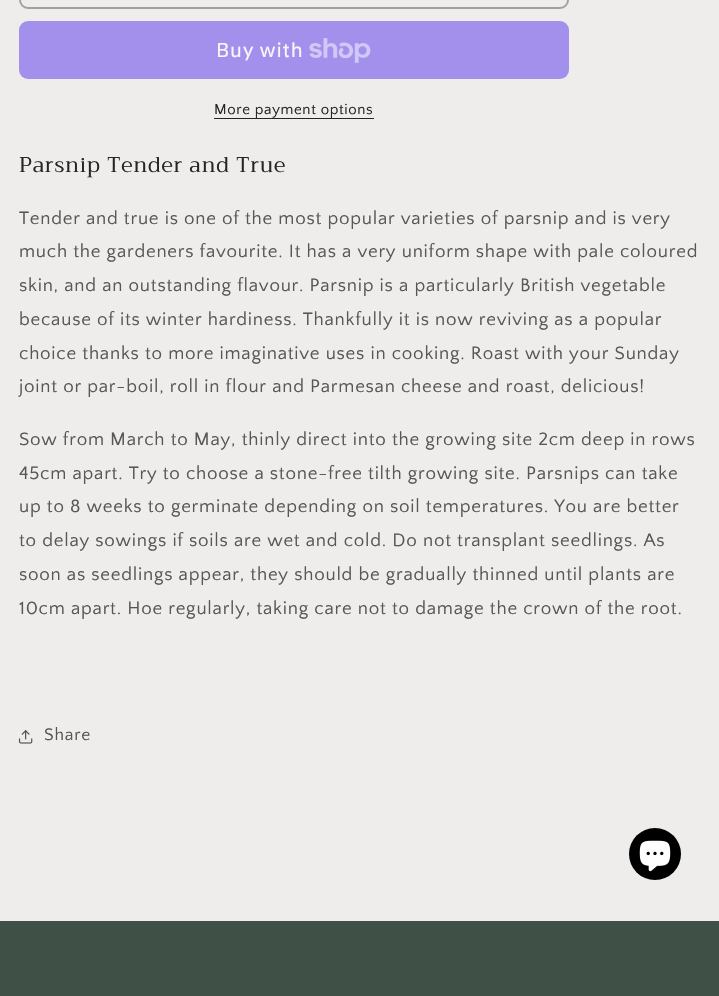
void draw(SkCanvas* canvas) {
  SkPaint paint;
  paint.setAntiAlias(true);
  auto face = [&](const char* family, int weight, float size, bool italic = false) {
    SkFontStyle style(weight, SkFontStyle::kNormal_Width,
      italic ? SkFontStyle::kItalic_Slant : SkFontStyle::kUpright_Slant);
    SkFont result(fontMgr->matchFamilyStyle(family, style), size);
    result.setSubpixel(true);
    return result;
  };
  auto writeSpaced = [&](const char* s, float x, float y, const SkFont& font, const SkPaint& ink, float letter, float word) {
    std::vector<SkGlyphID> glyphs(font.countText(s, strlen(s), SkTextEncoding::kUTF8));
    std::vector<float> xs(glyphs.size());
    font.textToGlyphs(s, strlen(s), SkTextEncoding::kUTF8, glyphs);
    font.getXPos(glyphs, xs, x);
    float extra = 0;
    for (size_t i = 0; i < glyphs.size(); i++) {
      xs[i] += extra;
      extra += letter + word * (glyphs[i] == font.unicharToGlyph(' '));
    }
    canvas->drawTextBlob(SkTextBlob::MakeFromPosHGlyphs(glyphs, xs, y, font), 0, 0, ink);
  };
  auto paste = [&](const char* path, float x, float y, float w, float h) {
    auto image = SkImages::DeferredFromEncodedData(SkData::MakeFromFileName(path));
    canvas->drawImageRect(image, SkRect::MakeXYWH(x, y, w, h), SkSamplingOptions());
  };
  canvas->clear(0xffefecec);
  paint.setStroke(true);
  paint.setStrokeWidth(2);
  paint.setColor(0xffa0a1a1);
  canvas->drawRoundRect(SkRect::MakeXYWH(20, -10, 548, 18), 8, 8, paint);
  paint.setStroke(false);
  paint.setColor(0xffa290ec);
  canvas->drawRoundRect(SkRect::MakeXYWH(19, 21, 550, 58), 9, 9, paint);
  paste("img/1.png", 309, 38, 62, 25);
  paint.setColor(0xff252525);
  canvas->drawRect(SkRect::MakeXYWH(214, 118, 160, 1), paint);
  paste("img/2.png", 18, 730, 15, 14);
  paint.setColor(0xff000000);
  canvas->drawCircle(655, 854, 26, paint);
  paste("img/3.png", 639, 840, 32, 32);
  paint.setColor(0xff3f5147);
  canvas->drawRect(SkRect::MakeXYWH(0, 921, 719, 75), paint);
  auto f0 = face("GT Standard", 400, 20);
  paint.setColor(0xfff7f6f6);
  writeSpaced("Buy with", 216, 57, f0, paint, 0.75f, 0);
  auto f1 = face("Quattrocento Sans", 400, 15);
  paint.setColor(0xff252525);
  writeSpaced("More payment options", 214, 114, f1, paint, 0.6f, 0);
  auto f2 = face("Trirong", 400, 21.25f);
  writeSpaced("Parsnip Tender and True", 19, 172, f2, paint, 0.75f, 0);
  auto f3 = face("Quattrocento Sans", 400, 18.75f);
  paint.setColor(0xff585757);
  {
    const struct { const char* s; float x, y; } items[] = {
      {"Tender and true is one of the most popular varieties of parsnip and is very", 19, 224},
      {"much the gardeners favourite. It has a very uniform shape with pale coloured", 19, 257},
      {"skin, and an outstanding flavour. Parsnip is a particularly British vegetable", 19, 291},
      {"because of its winter hardiness. Thankfully it is now reviving as a popular", 19, 325},
      {"choice thanks to more imaginative uses in cooking. Roast with your Sunday", 19, 359},
      {"joint or par-boil, roll in flour and Parmesan cheese and roast, delicious!", 19, 392},
      {"Sow from March to May, thinly direct into the growing site 2cm deep in rows", 19, 445},
      {"45cm apart. Try to choose a stone-free tilth growing site. Parsnips can take", 19, 479},
      {"up to 8 weeks to germinate depending on soil temperatures. You are better", 19, 512},
      {"to delay sowings if soils are wet and cold. Do not transplant seedlings. As", 19, 546},
      {"soon as seedlings appear, they should be gradually thinned until plants are", 19, 580},
      {"10cm apart. Hoe regularly, taking care not to damage the crown of the root.", 19, 614},
    };
    for (auto [s, x, y] : items) {
      writeSpaced(s, x, y, f3, paint, 0.75f, 0);
    }
  }
  auto f4 = face("Quattrocento Sans", 400, 17.5f);
  paint.setColor(0xff505655);
  writeSpaced("Share", 44, 740, f4, paint, 0.75f, 0);
}
